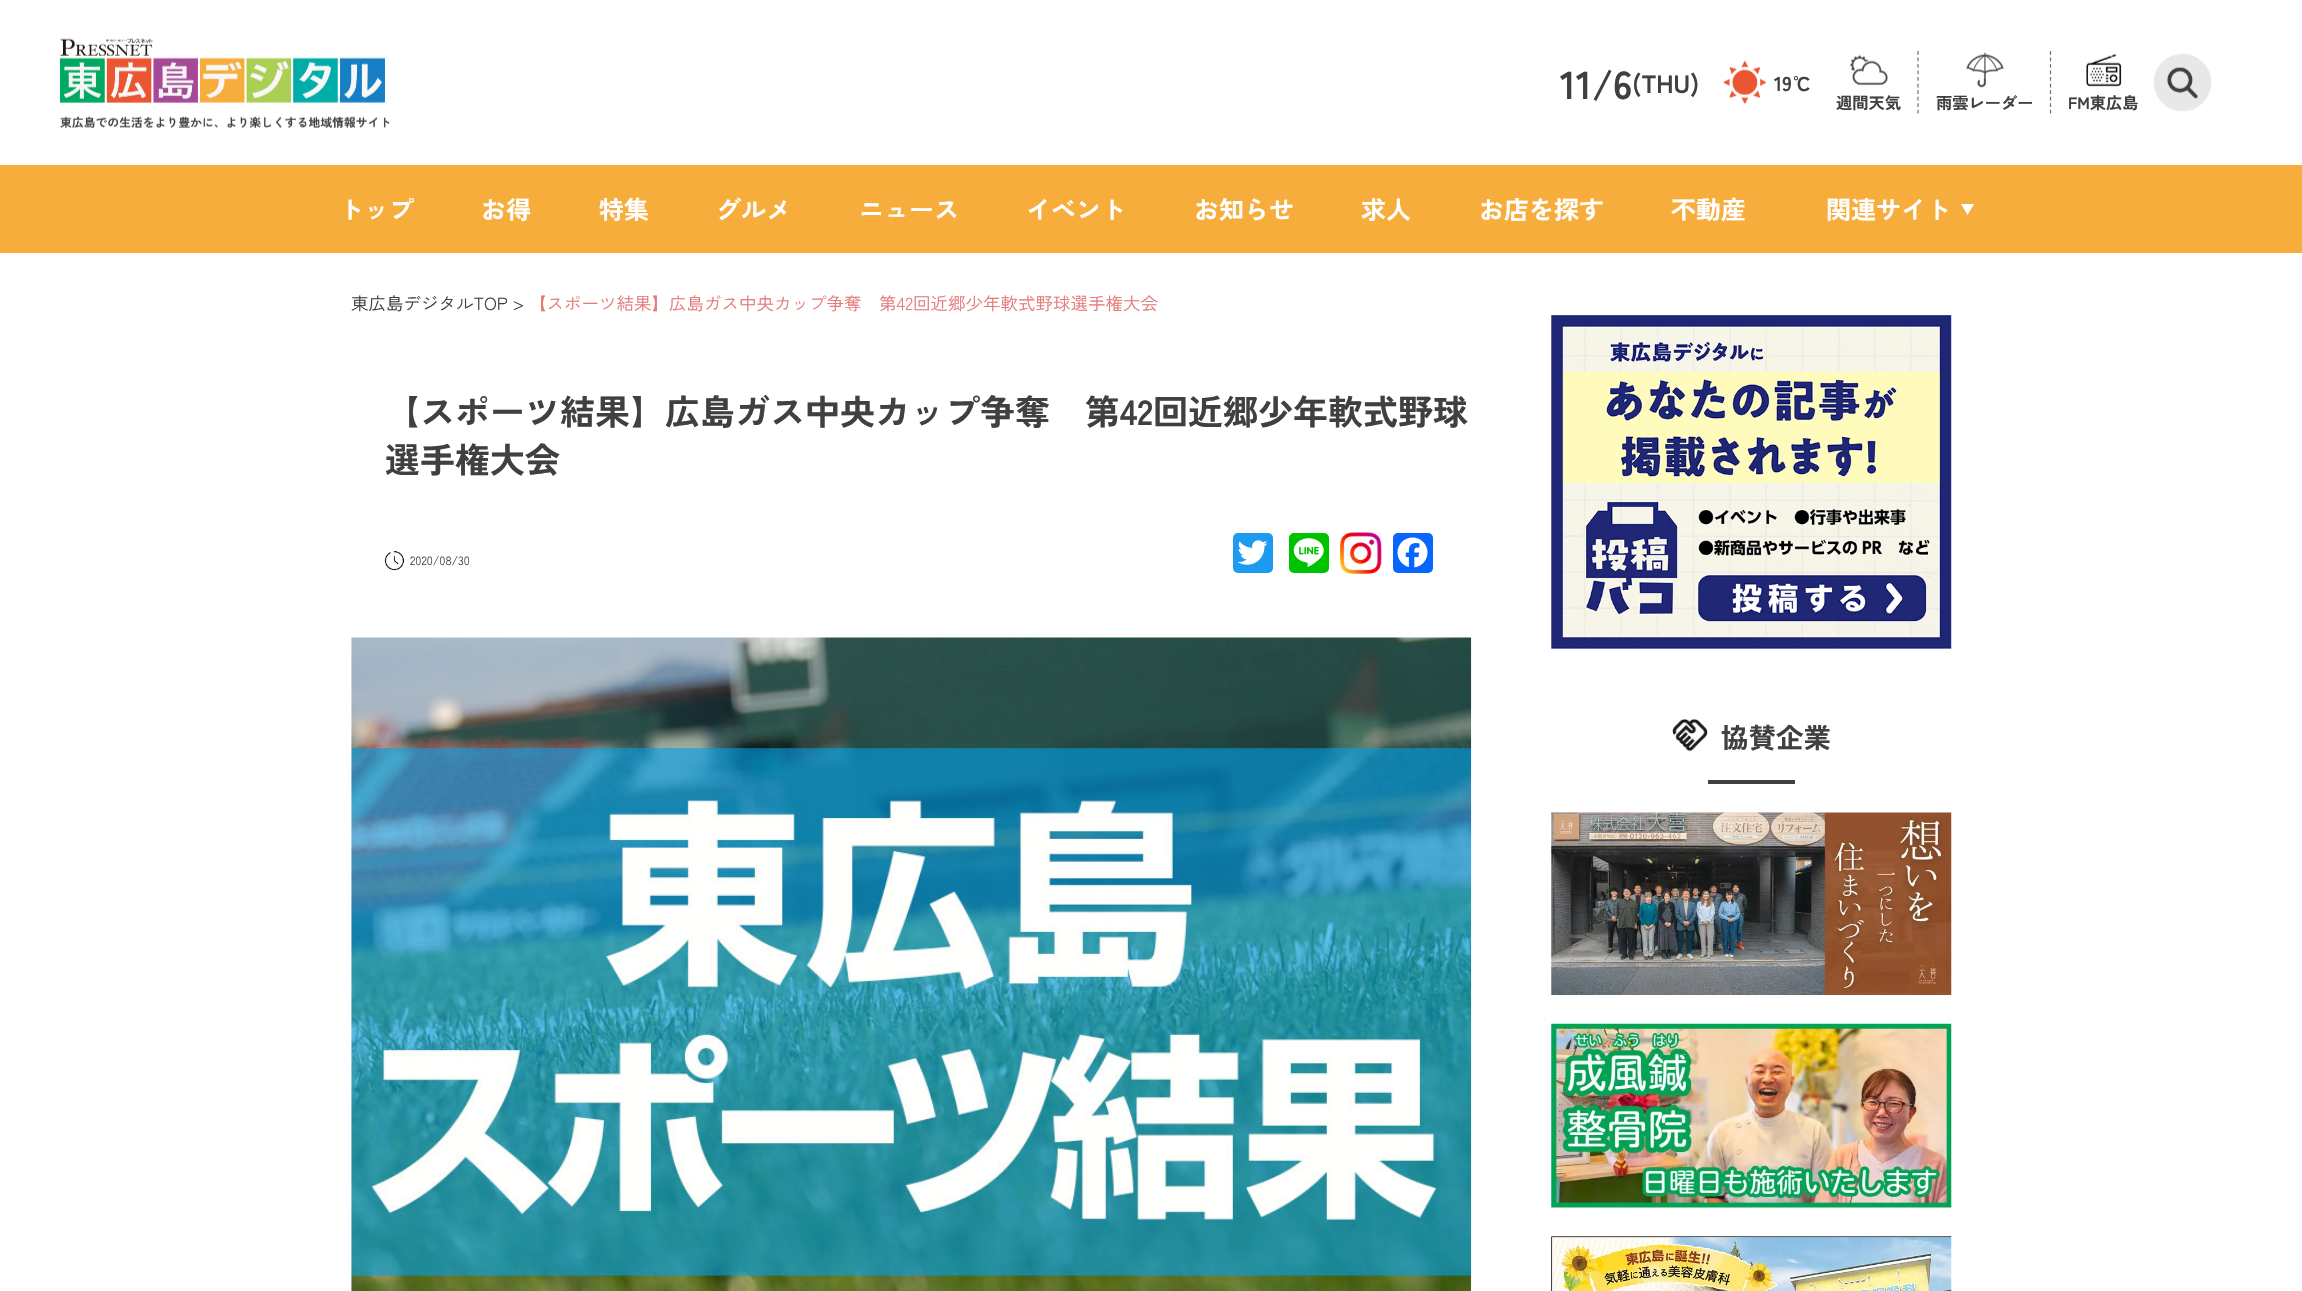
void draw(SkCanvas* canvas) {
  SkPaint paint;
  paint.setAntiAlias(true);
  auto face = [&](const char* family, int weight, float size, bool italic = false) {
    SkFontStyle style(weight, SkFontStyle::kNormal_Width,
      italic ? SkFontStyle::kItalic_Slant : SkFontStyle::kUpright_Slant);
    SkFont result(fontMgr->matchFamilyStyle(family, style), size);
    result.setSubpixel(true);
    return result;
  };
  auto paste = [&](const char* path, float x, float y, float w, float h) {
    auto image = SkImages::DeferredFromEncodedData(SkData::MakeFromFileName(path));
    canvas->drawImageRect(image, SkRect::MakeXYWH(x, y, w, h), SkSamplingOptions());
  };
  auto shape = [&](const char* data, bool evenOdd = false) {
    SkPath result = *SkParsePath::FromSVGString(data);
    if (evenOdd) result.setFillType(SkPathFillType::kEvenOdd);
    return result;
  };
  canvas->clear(0xffffffff);
  paste("img/1.png", 60, 38, 330, 90);
  paste("img/2.png", 1723, 60, 44, 44);
  paste("img/3.png", 2153, 53, 59, 59);
  paint.setStroke(true);
  paint.setStrokeWidth(1.2f);
  paint.setColor(0xff707070);
  paint.setPathEffect(SkDashPathEffect::Make({{3.75f, 2.78f}}, 0));
  canvas->drawPath(shape("M1918 51V114"), paint);
  paint.setPathEffect(nullptr);
  paste("img/4.png", 1850, 54, 38, 32);
  paint.setPathEffect(SkDashPathEffect::Make({{3.75f, 2.78f}}, 0));
  canvas->drawPath(shape("M2050.5 51V114"), paint);
  paint.setPathEffect(nullptr);
  paste("img/5.png", 1966, 52, 38, 36);
  paste("img/6.png", 2086, 53, 36, 34);
  paint.setStroke(false);
  paint.setColor(0xfff6ad3c);
  canvas->drawRect(SkRect::MakeXYWH(0, 165, 2302, 88), paint);
  paint.setColor(0xffffffff);
  canvas->drawPath(shape("M1961 204H1974L1967.5 215Z"), paint);
  paste("img/7.png", 384, 551, 21, 20);
  paint.setColor(0xff1d9bf0);
  canvas->drawRoundRect(SkRect::MakeXYWH(1233, 533, 40, 40), 5, 5, paint);
  paste("img/8.png", 1237, 540, 31, 25);
  paint.setColor(0xff00c300);
  canvas->drawRoundRect(SkRect::MakeXYWH(1289, 533, 40, 40), 5, 5, paint);
  paste("img/9.png", 1293, 538, 31, 29);
  paste("img/10.png", 1340, 532, 42, 42);
  paint.setColor(0xff0866ff);
  canvas->drawRoundRect(SkRect::MakeXYWH(1393, 533, 40, 40), 5, 5, paint);
  paste("img/11.png", 1397, 537, 31, 31);
  paste("img/12.png", 351, 637, 1121, 654);
  paste("img/13.png", 1551, 315, 401, 334);
  paste("img/14.png", 1672, 719, 36, 33);
  paint.setColor(0xff404040);
  canvas->drawRect(SkRect::MakeXYWH(1708, 780, 87, 4), paint);
  paste("img/15.png", 1551, 812, 401, 183);
  paste("img/16.png", 1551, 1023, 401, 185);
  paste("img/17.png", 1551, 1236, 401, 55);
  auto f0 = face("Zen Kaku Gothic New", 700, 39);
  canvas->drawString("11/6", 1560, 99, f0, paint);
  auto f1 = face("Zen Kaku Gothic New", 700, 25);
  canvas->drawString("(THU)", 1632, 93, f1, paint);
  auto f2 = face("Zen Kaku Gothic New", 700, 20);
  canvas->drawString("19℃", 1774, 91, f2, paint);
  auto f3 = face("Zen Kaku Gothic New", 700, 16.25f);
  {
    const struct { const char* s; float x, y; } items[] = {
      {"週間天気", 1836, 109},
      {"雨雲レーダー", 1936, 109},
      {"FM東広島", 2068, 109},
    };
    for (auto [s, x, y] : items) {
      canvas->drawString(s, x, y, f3, paint);
    }
  }
  paint.setColor(0xffffffff);
  {
    const struct { const char* s; float x, y; } items[] = {
      {"トップ", 339, 219},
      {"お得", 481, 219},
      {"特集", 599, 219},
      {"グルメ", 716, 219},
      {"ニュース", 859, 219},
      {"イベント", 1026, 219},
      {"お知らせ", 1194, 219},
      {"求人", 1361, 219},
      {"お店を探す", 1479, 219},
      {"不動産", 1671, 219},
      {"関連サイト", 1826, 219},
    };
    for (auto [s, x, y] : items) {
      canvas->drawString(s, x, y, f1, paint);
    }
  }
  auto f4 = face("Zen Kaku Gothic New", 400, 17.5f);
  paint.setColor(0xff404040);
  canvas->drawString("東広島デジタルTOP >", 351, 310, f4, paint);
  paint.setColor(0xffe57a7a);
  canvas->drawString("【スポーツ結果】広島ガス中央カップ争奪　第42回近郷少年軟式野球選手権大会", 529, 310, f4, paint);
  auto f5 = face("Zen Kaku Gothic New", 700, 35);
  paint.setColor(0xff404040);
  canvas->drawString("【スポーツ結果】広島ガス中央カップ争奪　第42回近郷少年軟式野球", 385, 425, f5, paint);
  canvas->drawString("選手権大会", 385, 473, f5, paint);
  auto f6 = face("Zen Kaku Gothic New", 400, 12);
  canvas->drawString("2020/08/30", 410, 565, f6, paint);
  auto f7 = face("Zen Kaku Gothic New", 700, 27.5f);
  canvas->drawString("協賛企業", 1721, 748, f7, paint);
}
